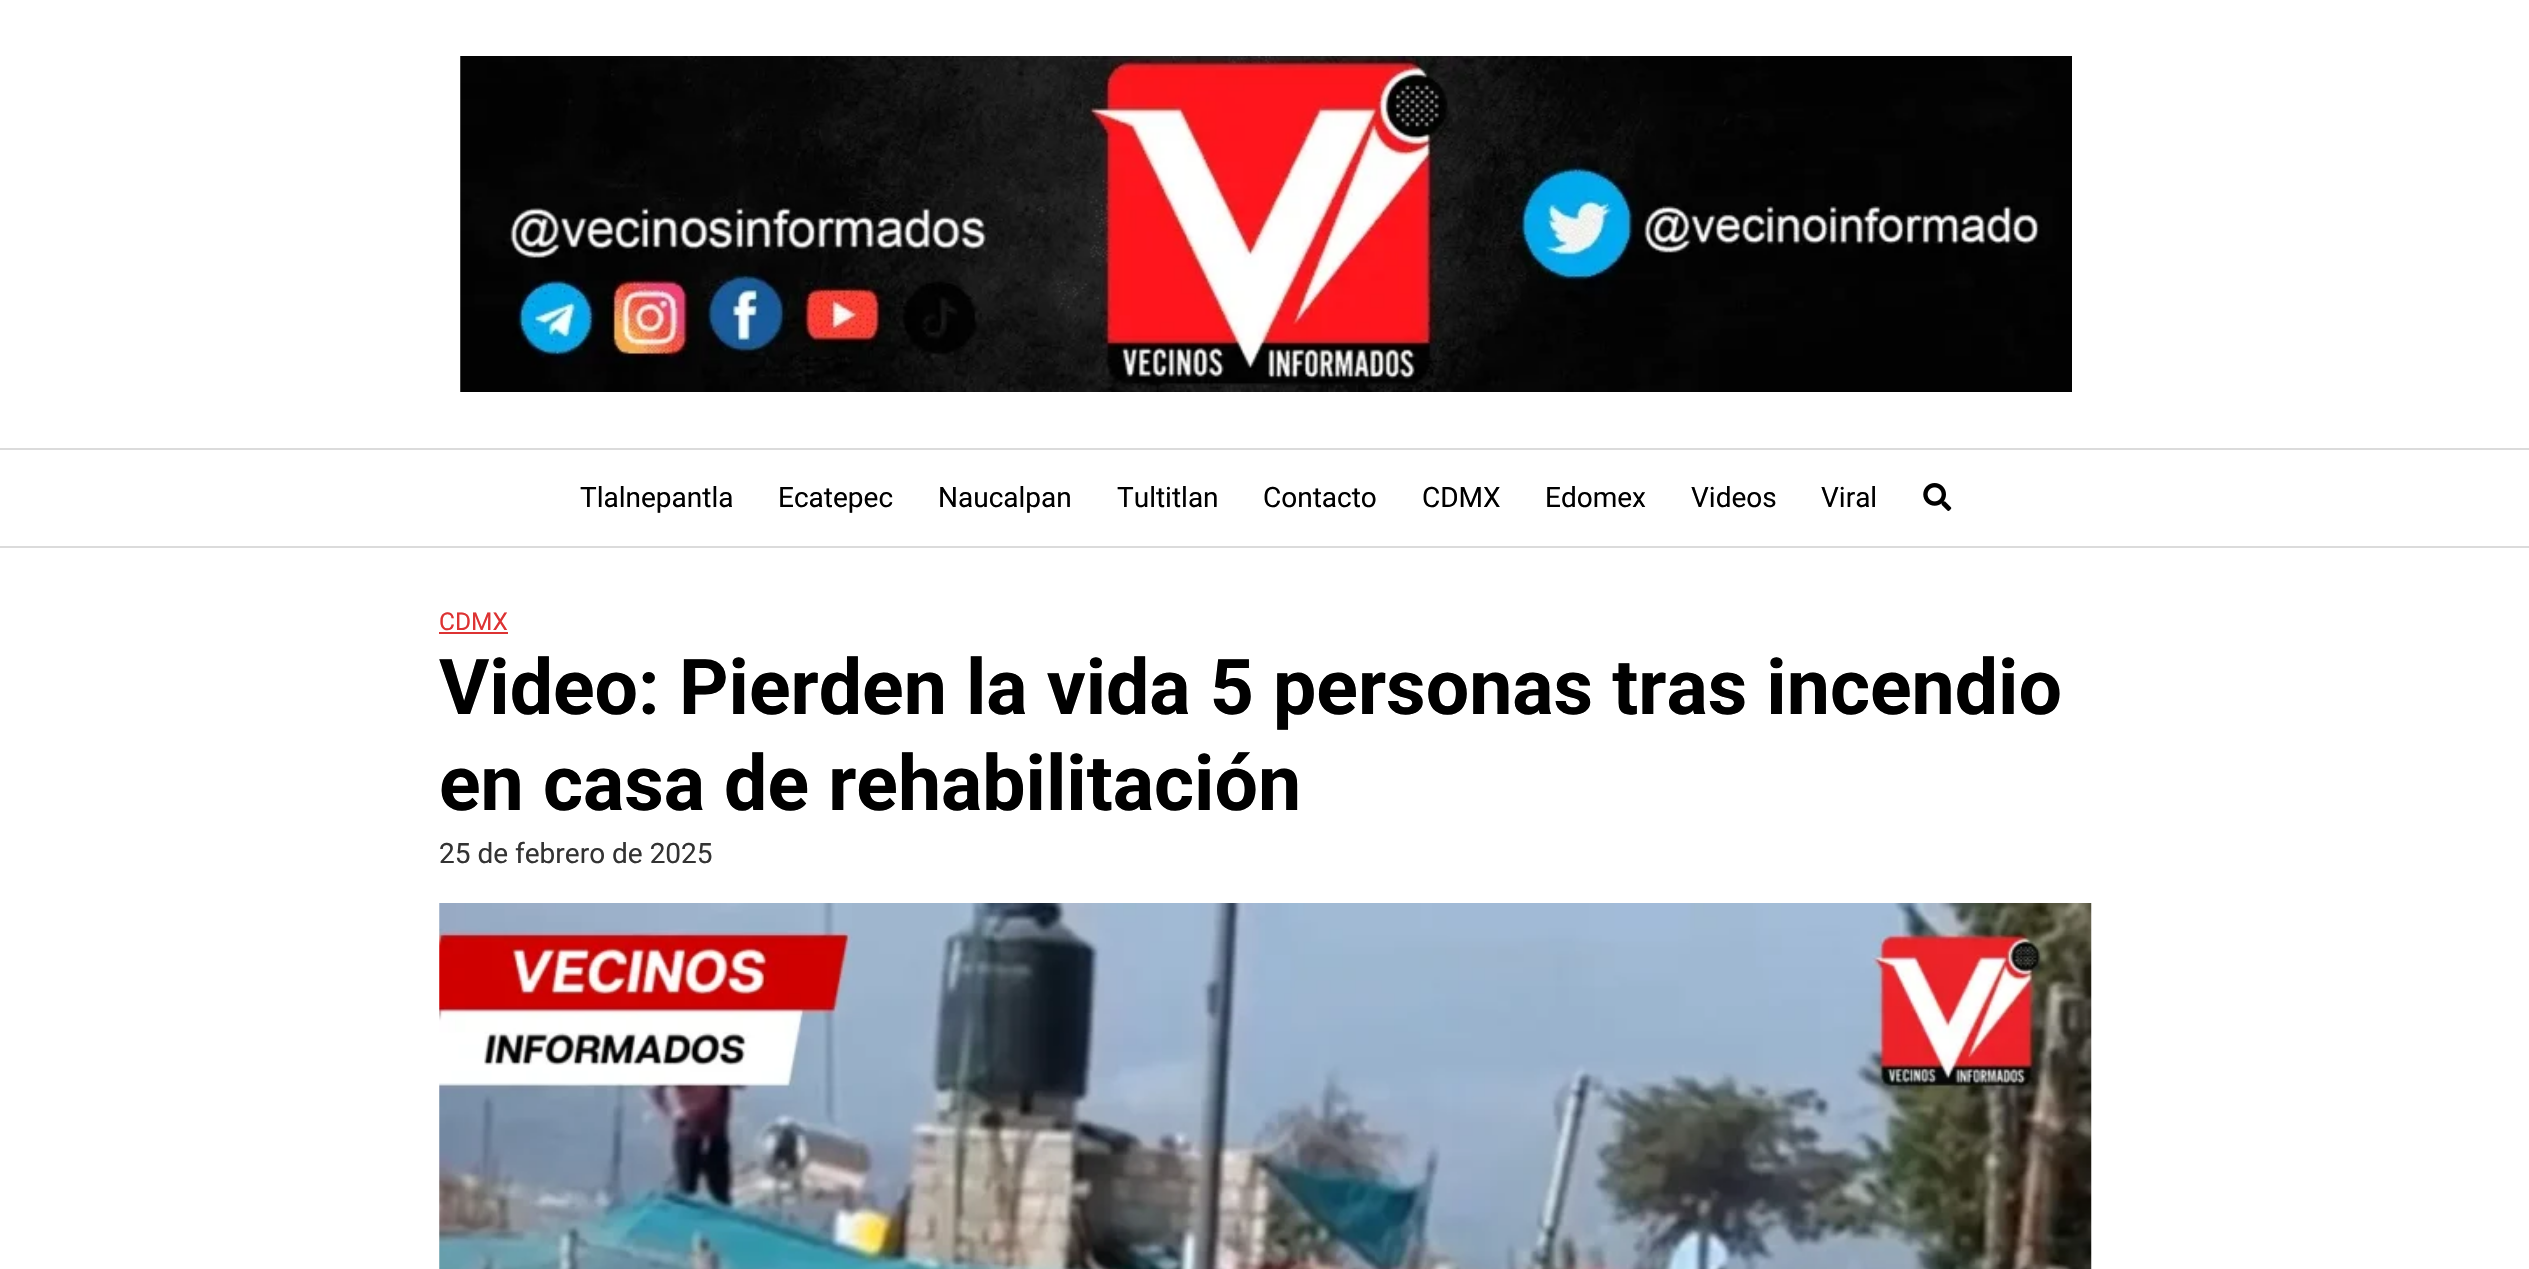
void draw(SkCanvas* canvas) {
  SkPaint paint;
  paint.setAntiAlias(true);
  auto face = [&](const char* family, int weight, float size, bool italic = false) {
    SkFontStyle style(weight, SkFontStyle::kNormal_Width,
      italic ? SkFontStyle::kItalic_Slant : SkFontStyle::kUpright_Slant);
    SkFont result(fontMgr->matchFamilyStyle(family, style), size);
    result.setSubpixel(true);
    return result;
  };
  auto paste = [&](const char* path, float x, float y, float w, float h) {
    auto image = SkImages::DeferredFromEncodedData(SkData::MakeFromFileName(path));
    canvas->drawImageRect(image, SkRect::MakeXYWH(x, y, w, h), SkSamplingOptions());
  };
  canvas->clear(0xffffffff);
  paint.setColor(0xffdbdbdb);
  canvas->drawRect(SkRect::MakeXYWH(0, 448, 2529, 2), paint);
  paste("img/1.png", 460, 56, 1612, 336);
  canvas->drawRect(SkRect::MakeXYWH(0, 546, 2529, 2), paint);
  paste("img/2.png", 1923, 483, 29, 28);
  paint.setColor(0xffdd3333);
  canvas->drawRect(SkRect::MakeXYWH(439, 632, 69, 2), paint);
  paste("img/3.png", 439, 903, 1653, 366);
  auto f0 = face("Roboto", 400, 28);
  paint.setColor(0xff000000);
  {
    const struct { const char* s; float x, y; } items[] = {
      {"Tlalnepantla", 580, 507},
      {"Ecatepec", 778, 507},
      {"Naucalpan", 938, 507},
      {"Tultitlan", 1117, 507},
      {"Contacto", 1263, 507},
      {"CDMX", 1422, 507},
      {"Edomex", 1545, 507},
      {"Videos", 1691, 507},
      {"Viral", 1821, 507},
    };
    for (auto [s, x, y] : items) {
      canvas->drawString(s, x, y, f0, paint);
    }
  }
  auto f1 = face("Roboto", 400, 24.5f);
  paint.setColor(0xffdd3333);
  canvas->drawString("CDMX", 439, 630, f1, paint);
  auto f2 = face("Roboto", 700, 77);
  paint.setColor(0xff000000);
  canvas->drawString("Video: Pierden la vida 5 personas tras incendio", 439, 714, f2, paint);
  canvas->drawString("en casa de rehabilitación", 439, 810, f2, paint);
  paint.setColor(0xff333333);
  canvas->drawString("25 de febrero de 2025", 439, 863, f0, paint);
}
